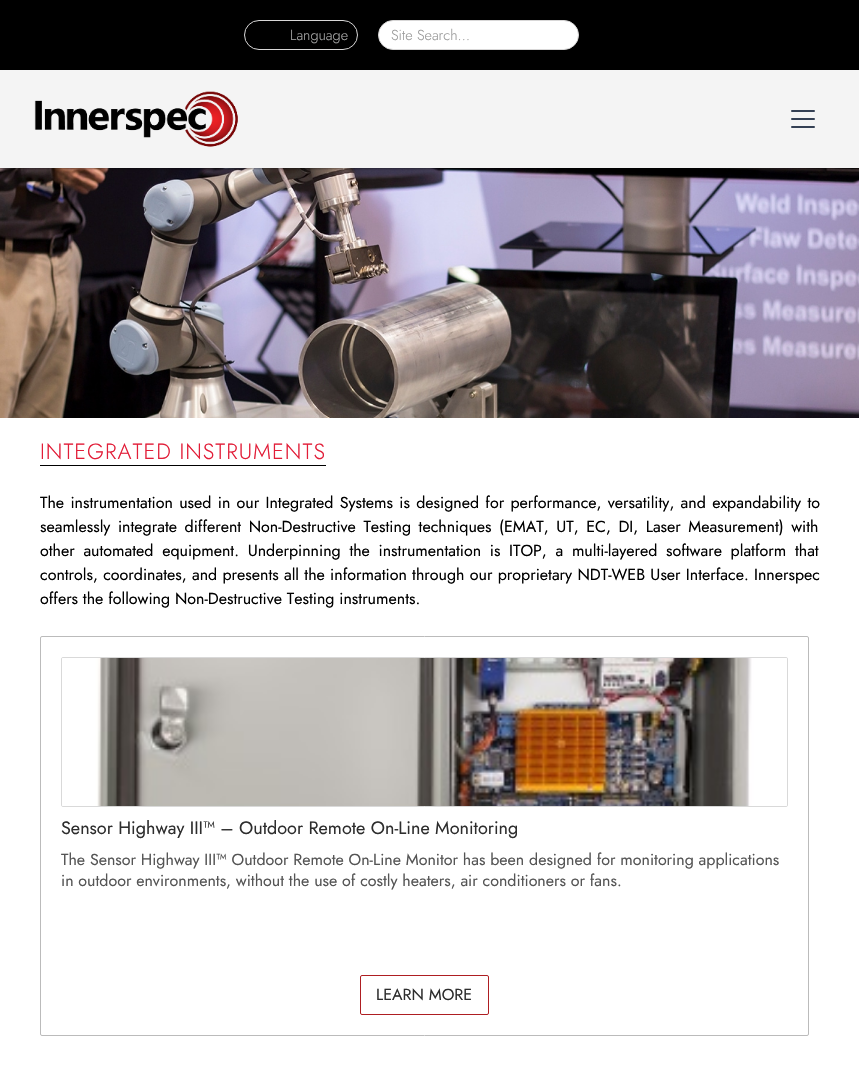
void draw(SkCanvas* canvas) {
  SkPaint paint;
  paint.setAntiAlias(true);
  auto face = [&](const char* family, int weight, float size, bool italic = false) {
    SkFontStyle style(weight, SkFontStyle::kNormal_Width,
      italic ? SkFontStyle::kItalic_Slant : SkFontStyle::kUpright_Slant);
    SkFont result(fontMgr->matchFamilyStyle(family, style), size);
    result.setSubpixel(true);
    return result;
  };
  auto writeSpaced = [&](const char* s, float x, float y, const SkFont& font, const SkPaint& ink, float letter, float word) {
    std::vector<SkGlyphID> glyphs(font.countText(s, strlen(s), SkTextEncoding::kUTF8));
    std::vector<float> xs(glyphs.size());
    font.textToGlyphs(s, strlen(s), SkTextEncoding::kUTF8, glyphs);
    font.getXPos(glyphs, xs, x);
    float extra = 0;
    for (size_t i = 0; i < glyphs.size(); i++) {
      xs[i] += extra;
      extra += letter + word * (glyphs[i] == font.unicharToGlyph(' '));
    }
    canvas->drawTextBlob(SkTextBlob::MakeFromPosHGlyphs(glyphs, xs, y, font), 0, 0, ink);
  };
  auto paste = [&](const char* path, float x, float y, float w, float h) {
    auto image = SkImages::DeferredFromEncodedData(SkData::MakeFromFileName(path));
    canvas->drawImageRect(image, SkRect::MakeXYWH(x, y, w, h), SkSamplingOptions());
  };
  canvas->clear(0xffffffff);
  paste("img/2.png", 0, 168, 859, 250);
  paint.setColor(0x59000000);
  paint.setMaskFilter(SkMaskFilter::MakeBlur(kNormal_SkBlurStyle, 1));
  canvas->drawRect(SkRect::MakeXYWH(1, 71, 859, 98), paint);
  paint.setMaskFilter(nullptr);
  paint.setColor(0xff000000);
  canvas->drawRect(SkRect::MakeXYWH(0, 0, 859, 70), paint);
  paint.setStroke(true);
  paint.setStrokeWidth(1);
  paint.setColor(0xffd8d7d7);
  canvas->drawRoundRect(SkRect::MakeXYWH(244.5f, 20.5f, 113, 29), 14.5f, 14.5f, paint);
  paint.setStroke(false);
  paint.setColor(0xffffffff);
  canvas->drawRoundRect(SkRect::MakeXYWH(378.5f, 20.5f, 200, 29), 14.5f, 14.5f, paint);
  paint.setStroke(true);
  paint.setColor(0xffd8d7d7);
  canvas->drawRoundRect(SkRect::MakeXYWH(378.5f, 20.5f, 200, 29), 14.5f, 14.5f, paint);
  paint.setStroke(false);
  paint.setColor(0xfff4f4f4);
  canvas->drawRect(SkRect::MakeXYWH(0, 70, 859, 98), paint);
  paste("img/1.png", 34, 91, 204, 56);
  paint.setColor(0xff344054);
  canvas->drawRoundRect(SkRect::MakeXYWH(791, 110, 24, 2), 1, 1, paint);
  canvas->drawRoundRect(SkRect::MakeXYWH(791, 118, 24, 2), 1, 1, paint);
  canvas->drawRoundRect(SkRect::MakeXYWH(791, 126, 24, 2), 1, 1, paint);
  paint.setColor(0xff000000);
  canvas->drawRect(SkRect::MakeXYWH(40, 465, 286, 1), paint);
  paint.setStroke(true);
  paint.setColor(0xffbbbbbb);
  canvas->drawRoundRect(SkRect::MakeXYWH(40.5f, 636.5f, 768, 399), 1.5f, 1.5f, paint);
  paint.setColor(0xffd9d9d9);
  canvas->drawRoundRect(SkRect::MakeXYWH(61.5f, 657.5f, 726, 149), 1.5f, 1.5f, paint);
  paste("img/3.png", 62, 658, 725, 148);
  paint.setColor(0xffae1e22);
  canvas->drawRoundRect(SkRect::MakeXYWH(360.5f, 975.5f, 128, 39), 1.5f, 1.5f, paint);
  auto f0 = face("Jost", 300, 14.5f);
  paint.setStroke(false);
  paint.setColor(0xffa7a7a7);
  canvas->drawString("Language", 290, 40, f0, paint);
  paint.setColor(0xff999999);
  canvas->drawString("Site Search…", 391, 40, f0, paint);
  auto f1 = face("Jost", 300, 22);
  paint.setColor(0xffe21d38);
  writeSpaced("INTEGRATED INSTRUMENTS", 40, 459, f1, paint, 1, 0);
  auto f2 = face("Jost", 400, 16);
  paint.setColor(0xff000000);
  writeSpaced("The instrumentation used in our Integrated Systems is designed for performance, versatility, and expandability to", 40, 508, f2, paint, 0, 1.5f);
  writeSpaced("seamlessly integrate different Non-Destructive Testing techniques (EMAT, UT, EC, DI, Laser Measurement) with", 40, 532, f2, paint, 0, 2.75f);
  writeSpaced("other automated equipment. Underpinning the instrumentation is ITOP, a multi-layered software platform that", 40, 556, f2, paint, 0, 3.9f);
  writeSpaced("controls, coordinates, and presents all the information through our proprietary NDT-WEB User Interface. Innerspec", 40, 580, f2, paint, 0, 0.5f);
  canvas->drawString("offers the following Non-Destructive Testing instruments.", 40, 604, f2, paint);
  auto f3 = face("Jost", 400, 18);
  paint.setColor(0xff2e2e2e);
  canvas->drawString("Sensor Highway III™ – Outdoor Remote On-Line Monitoring", 61, 834, f3, paint);
  paint.setColor(0xff555555);
  canvas->drawString("The Sensor Highway III™ Outdoor Remote On-Line Monitor has been designed for monitoring applications", 61, 865, f2, paint);
  canvas->drawString("in outdoor environments, without the use of costly heaters, air conditioners or fans.", 61, 886, f2, paint);
  paint.setColor(0xff2e2e2e);
  canvas->drawString("LEARN MORE", 376, 1000, f2, paint);
}
